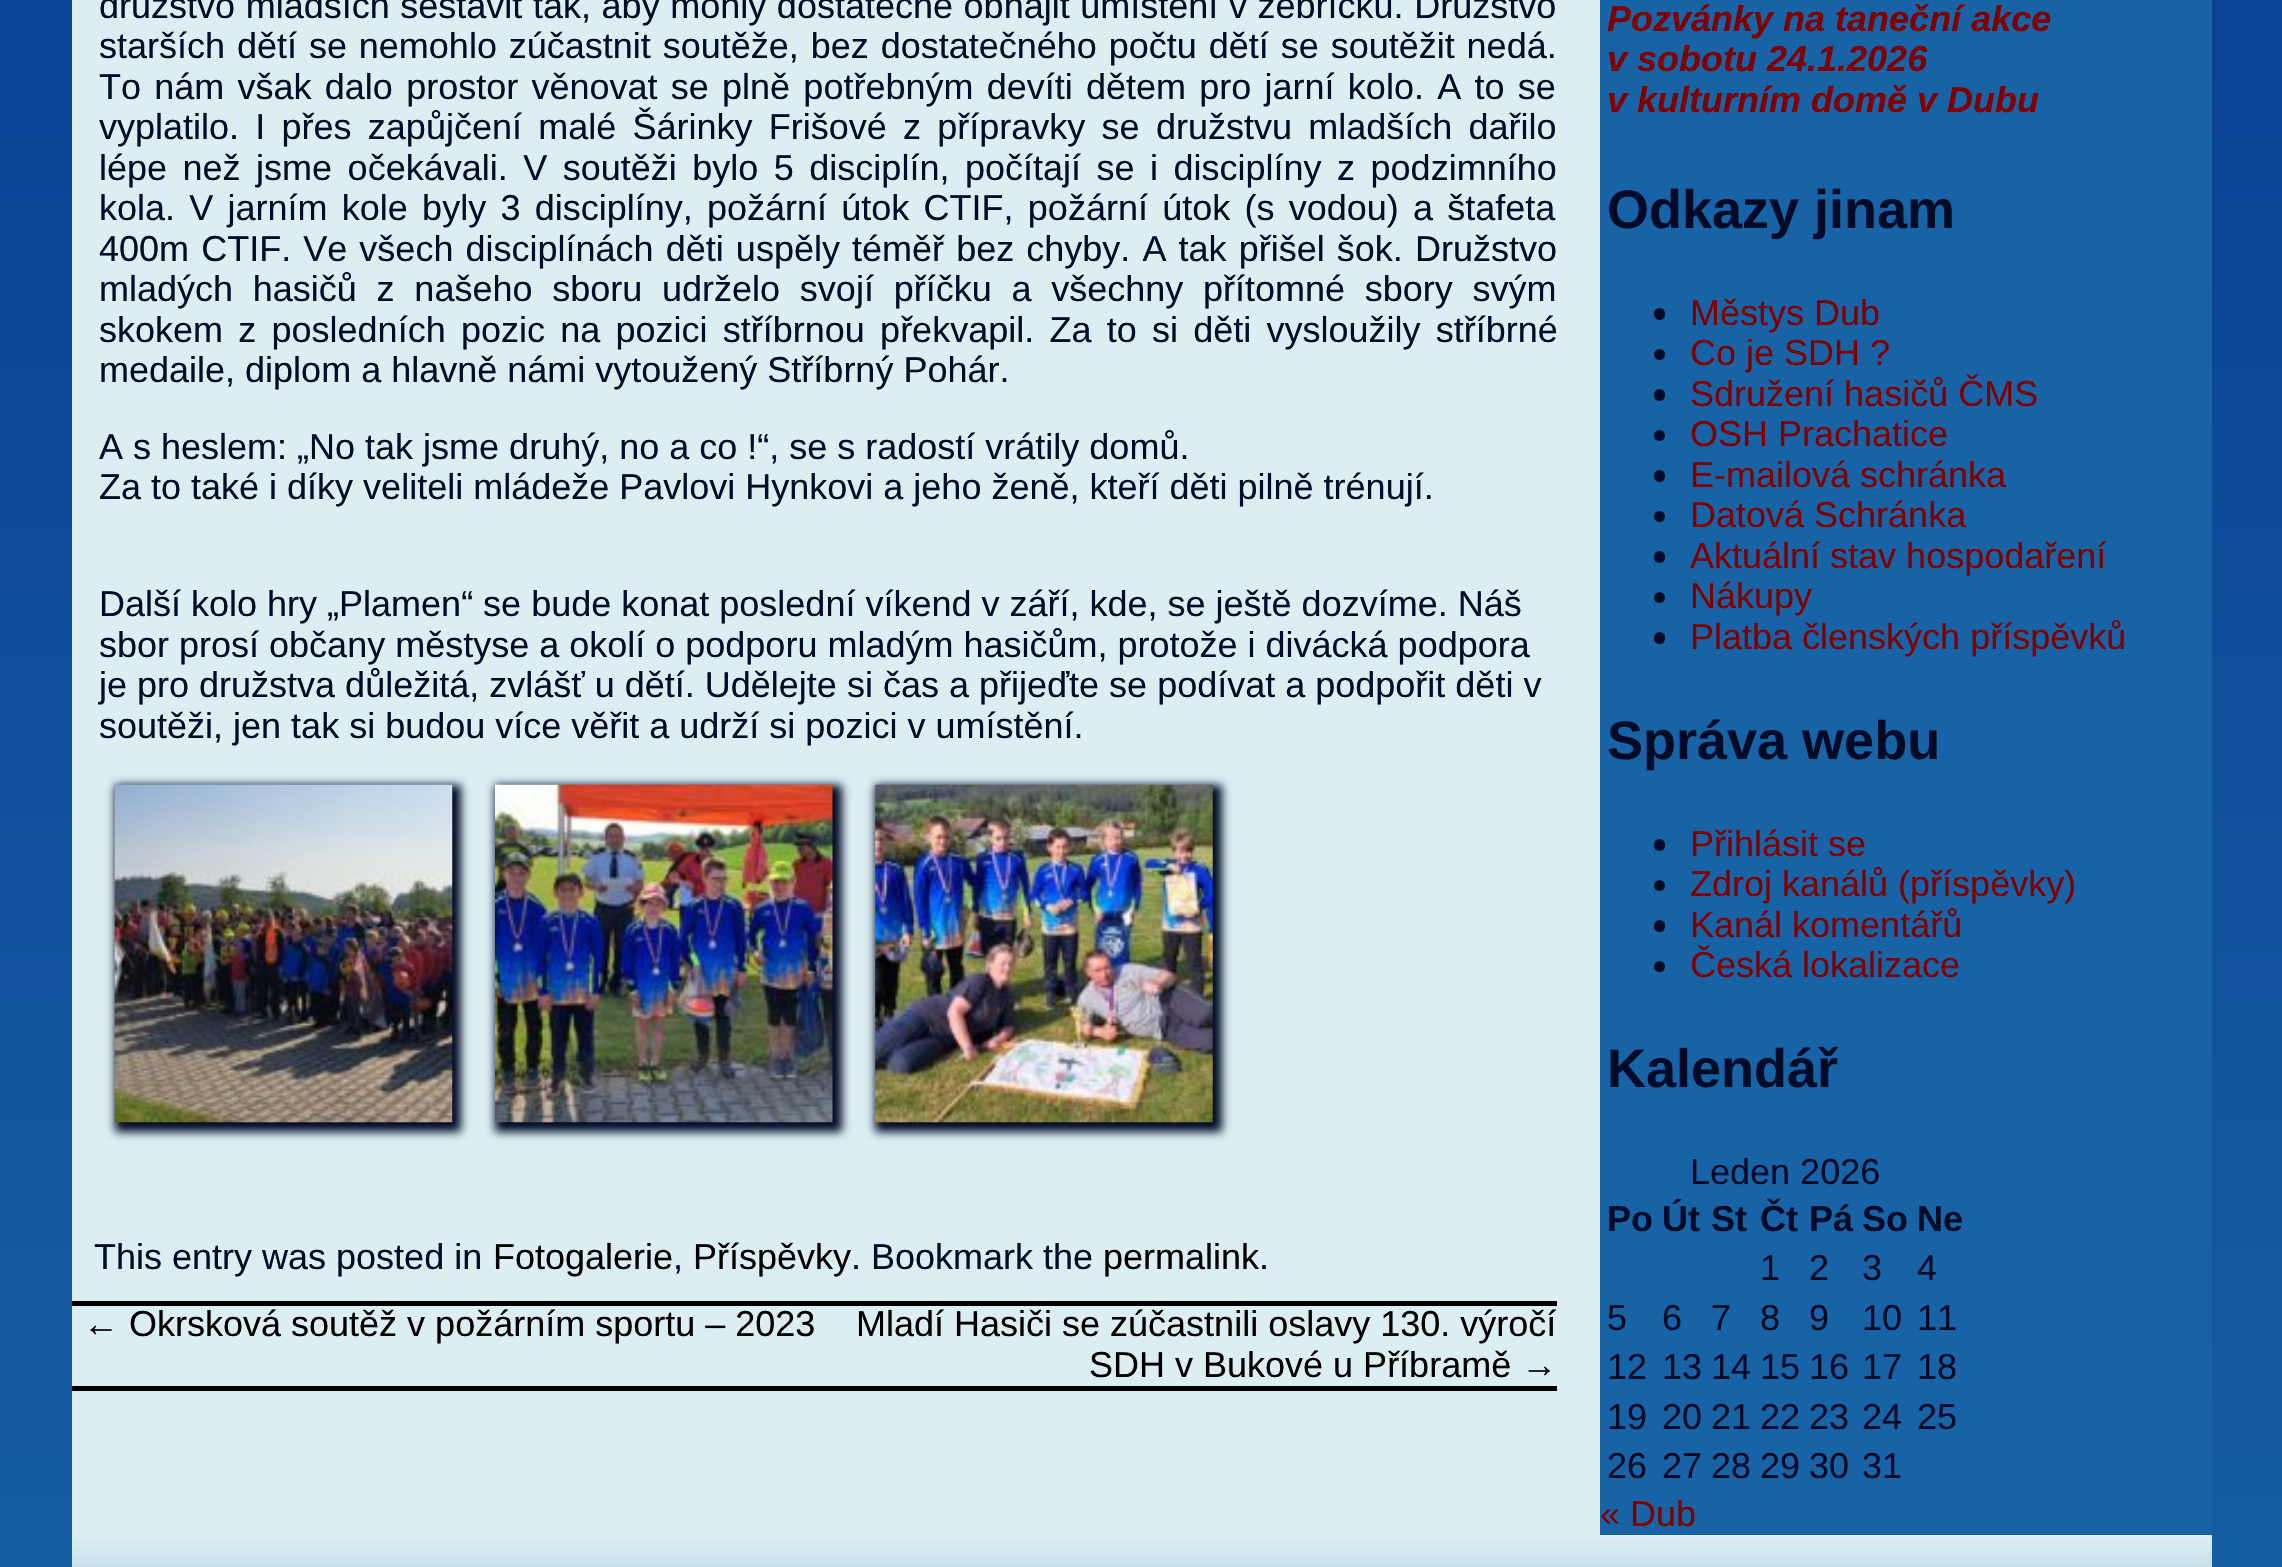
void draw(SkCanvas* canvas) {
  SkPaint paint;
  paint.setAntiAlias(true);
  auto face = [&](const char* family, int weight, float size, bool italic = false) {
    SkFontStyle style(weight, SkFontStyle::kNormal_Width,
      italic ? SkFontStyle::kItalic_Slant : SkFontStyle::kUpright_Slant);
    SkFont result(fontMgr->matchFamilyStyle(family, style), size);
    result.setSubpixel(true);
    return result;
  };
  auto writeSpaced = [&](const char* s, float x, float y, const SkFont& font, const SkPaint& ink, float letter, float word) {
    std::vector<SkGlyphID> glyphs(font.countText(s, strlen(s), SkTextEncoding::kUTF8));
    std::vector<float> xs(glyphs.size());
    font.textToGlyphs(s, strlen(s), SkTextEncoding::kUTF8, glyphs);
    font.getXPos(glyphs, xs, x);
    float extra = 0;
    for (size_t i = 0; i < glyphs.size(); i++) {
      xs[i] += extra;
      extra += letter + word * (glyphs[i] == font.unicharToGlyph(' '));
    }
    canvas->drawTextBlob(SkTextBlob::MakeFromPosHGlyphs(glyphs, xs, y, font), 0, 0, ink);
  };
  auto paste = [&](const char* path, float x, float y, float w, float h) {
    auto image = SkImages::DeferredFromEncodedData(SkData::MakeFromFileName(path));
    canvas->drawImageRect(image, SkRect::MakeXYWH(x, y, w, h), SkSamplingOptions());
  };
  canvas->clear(0xffffffff);
  {
    const SkColor colors[] = {0xff03318c, 0xff1763a6};
    const float stops[] = {0, 1};
    const SkPoint ends[] = {{1142, -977}, {1142, 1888}};
    paint.setShader(SkGradientShader::MakeLinear(ends, colors, stops, 2, SkTileMode::kClamp));
    paint.setAlpha(255);
  }
  canvas->drawRect(SkRect::MakeXYWH(0, 0, 2282, 1567), paint);
  paint.setShader(nullptr);
  paint.setColor(0xffdceef2);
  canvas->drawRect(SkRect::MakeXYWH(72, 0, 1528, 1535), paint);
  paint.setColor(0xff010a26);
  paint.setMaskFilter(SkMaskFilter::MakeBlur(kNormal_SkBlurStyle, 4.5f));
  canvas->drawRect(SkRect::MakeXYWH(115, 785, 346, 347), paint);
  paint.setMaskFilter(nullptr);
  paste("img/1.png", 114, 784, 339, 339);
  paint.setMaskFilter(SkMaskFilter::MakeBlur(kNormal_SkBlurStyle, 4.5f));
  canvas->drawRect(SkRect::MakeXYWH(495, 785, 347, 347), paint);
  paint.setMaskFilter(nullptr);
  paste("img/2.png", 495, 784, 338, 339);
  paint.setMaskFilter(SkMaskFilter::MakeBlur(kNormal_SkBlurStyle, 4.5f));
  canvas->drawRect(SkRect::MakeXYWH(875, 785, 347, 347), paint);
  paint.setMaskFilter(nullptr);
  paste("img/3.png", 875, 784, 338, 339);
  {
    const struct { float x, y, w, h; SkColor color; } items[] = {
      {72, 1301, 1485, 5, 0xff000000},
      {72, 1386, 1485, 5, 0xff000000},
      {1600, 0, 612, 1535, 0xff1763a6},
    };
    for (auto [x, y, w, h, color] : items) {
      paint.setColor(color);
      canvas->drawRect(SkRect::MakeXYWH(x, y, w, h), paint);
    }
  }
  paint.setColor(0xff010a26);
  canvas->drawRoundRect(SkRect::MakeXYWH(1654, 308, 11, 12), 5.5f, 5.5f, paint);
  canvas->drawCircle(1659.5f, 354.5f, 5.5f, paint);
  canvas->drawRoundRect(SkRect::MakeXYWH(1654, 389, 11, 12), 5.5f, 5.5f, paint);
  canvas->drawCircle(1659.5f, 435.5f, 5.5f, paint);
  canvas->drawRoundRect(SkRect::MakeXYWH(1654, 470, 11, 12), 5.5f, 5.5f, paint);
  canvas->drawCircle(1659.5f, 516.5f, 5.5f, paint);
  canvas->drawRoundRect(SkRect::MakeXYWH(1654, 551, 11, 12), 5.5f, 5.5f, paint);
  canvas->drawCircle(1659.5f, 597.5f, 5.5f, paint);
  canvas->drawRoundRect(SkRect::MakeXYWH(1654, 632, 11, 12), 5.5f, 5.5f, paint);
  canvas->drawRoundRect(SkRect::MakeXYWH(1654, 839, 11, 12), 5.5f, 5.5f, paint);
  canvas->drawCircle(1659.5f, 885.5f, 5.5f, paint);
  canvas->drawRoundRect(SkRect::MakeXYWH(1654, 920, 11, 12), 5.5f, 5.5f, paint);
  canvas->drawCircle(1659.5f, 966.5f, 5.5f, paint);
  {
    const SkColor colors[] = {0xffdceef2, 0xff1763a6};
    const float stops[] = {0, 1};
    const SkPoint ends[] = {{1142, 1535}, {1142, 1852}};
    paint.setShader(SkGradientShader::MakeLinear(ends, colors, stops, 2, SkTileMode::kClamp));
    paint.setAlpha(255);
  }
  canvas->drawRect(SkRect::MakeXYWH(72, 1535, 2140, 32), paint);
  auto f0 = face("Liberation Sans", 400, 36);
  paint.setShader(nullptr);
  paint.setColor(0xff010a26);
  writeSpaced("družstvo mladších sestavit tak, aby mohly dostatečně obhájit umístění v žebříčku. Družstvo", 99, 18, f0, paint, 0, 0.6f);
  writeSpaced("starších dětí se nemohlo zúčastnit soutěže, bez dostatečného počtu dětí se soutěžit nedá.", 99, 58, f0, paint, 0, 1.9f);
  writeSpaced("To nám však dalo prostor věnovat se plně potřebným devíti dětem pro jarní kolo. A to se", 99, 99, f0, paint, 0, 3.25f);
  writeSpaced("vyplatilo. I přes zapůjčení malé Šárinky Frišové z přípravky se družstvu mladších dařilo", 99, 139, f0, paint, 0, 6.25f);
  writeSpaced("lépe než jsme očekávali. V soutěži bylo 5 disciplín, počítají se i disciplíny z podzimního", 99, 180, f0, paint, 0, 5.5f);
  writeSpaced("kola. V jarním kole byly 3 disciplíny, požární útok CTIF, požární útok (s vodou) a štafeta", 99, 220, f0, paint, 0, 4.25f);
  writeSpaced("400m CTIF. Ve všech disciplínách děti uspěly téměř bez chyby. A tak přišel šok. Družstvo", 99, 261, f0, paint, 0, 2.1f);
  writeSpaced("mladých hasičů z našeho sboru udrželo svojí příčku a všechny přítomné sbory svým", 99, 301, f0, paint, 0, 9.75f);
  writeSpaced("skokem z posledních pozic na pozici stříbrnou překvapil. Za to si děti vysloužily stříbrné", 99, 342, f0, paint, 0, 5.25f);
  {
    const struct { const char* s; float x, y; } items[] = {
      {"medaile, diplom a hlavně námi vytoužený Stříbrný Pohár.", 99, 382},
      {"A s heslem: „No tak jsme druhý, no a co !“, se s radostí vrátily domů.", 99, 459},
      {"Za to také i díky veliteli mládeže Pavlovi Hynkovi a jeho ženě, kteří děti pilně trénují.", 99, 499},
      {"Další kolo hry „Plamen“ se bude konat poslední víkend v září, kde, se ještě dozvíme. Náš", 99, 616},
      {"sbor prosí občany městyse a okolí o podporu mladým hasičům, protože i divácká podpora", 99, 657},
      {"je pro družstva důležitá, zvlášť u dětí. Udělejte si čas a přijeďte se podívat a podpořit děti v", 99, 697},
      {"soutěži, jen tak si budou více věřit a udrží si pozici v umístění.", 99, 738},
      {"This entry was posted in", 94, 1269},
    };
    for (auto [s, x, y] : items) {
      canvas->drawString(s, x, y, f0, paint);
    }
  }
  paint.setColor(0xff000000);
  canvas->drawString("Fotogalerie", 493, 1269, f0, paint);
  paint.setColor(0xff010a26);
  canvas->drawString(",", 673, 1269, f0, paint);
  paint.setColor(0xff000000);
  canvas->drawString("Příspěvky", 693, 1269, f0, paint);
  paint.setColor(0xff010a26);
  canvas->drawString(". Bookmark the", 851, 1269, f0, paint);
  paint.setColor(0xff000000);
  canvas->drawString("permalink", 1103, 1269, f0, paint);
  paint.setColor(0xff010a26);
  canvas->drawString(".", 1259, 1269, f0, paint);
  paint.setColor(0xff000000);
  {
    const struct { const char* s; float x, y; } items[] = {
      {"← Okrsková soutěž v požárním sportu – 2023", 83, 1336},
      {"Mladí Hasiči se zúčastnili oslavy 130. výročí", 856, 1336},
      {"SDH v Bukové u Příbramě →", 1089, 1377},
    };
    for (auto [s, x, y] : items) {
      canvas->drawString(s, x, y, f0, paint);
    }
  }
  auto f1 = face("Liberation Sans", 700, 36, true);
  paint.setColor(0xff800000);
  {
    const struct { const char* s; float x, y; } items[] = {
      {"Pozvánky na taneční akce", 1607, 31},
      {"v sobotu 24.1.2026", 1607, 71},
      {"v kulturním domě v Dubu", 1607, 112},
    };
    for (auto [s, x, y] : items) {
      canvas->drawString(s, x, y, f1, paint);
    }
  }
  auto f2 = face("Liberation Sans", 700, 54);
  paint.setColor(0xff010a26);
  canvas->drawString("Odkazy jinam", 1607, 228, f2, paint);
  paint.setColor(0xff800000);
  {
    const struct { const char* s; float x, y; } items[] = {
      {"Městys Dub", 1690, 325},
      {"Co je SDH ?", 1690, 365},
      {"Sdružení hasičů ČMS", 1690, 406},
      {"OSH Prachatice", 1690, 446},
      {"E-mailová schránka", 1690, 487},
      {"Datová Schránka", 1690, 527},
      {"Aktuální stav hospodaření", 1690, 568},
      {"Nákupy", 1690, 608},
      {"Platba členských příspěvků", 1690, 649},
    };
    for (auto [s, x, y] : items) {
      canvas->drawString(s, x, y, f0, paint);
    }
  }
  paint.setColor(0xff010a26);
  canvas->drawString("Správa webu", 1607, 759, f2, paint);
  paint.setColor(0xff800000);
  {
    const struct { const char* s; float x, y; } items[] = {
      {"Přihlásit se", 1690, 856},
      {"Zdroj kanálů (příspěvky)", 1690, 896},
      {"Kanál komentářů", 1690, 937},
      {"Česká lokalizace", 1690, 977},
    };
    for (auto [s, x, y] : items) {
      canvas->drawString(s, x, y, f0, paint);
    }
  }
  paint.setColor(0xff010a26);
  canvas->drawString("Kalendář", 1607, 1087, f2, paint);
  canvas->drawString("Leden 2026", 1690, 1184, f0, paint);
  auto f3 = face("Liberation Sans", 700, 36);
  {
    const struct { const char* s; float x, y; } items[] = {
      {"Po", 1607, 1231},
      {"Út", 1662, 1231},
      {"St", 1711, 1231},
      {"Čt", 1760, 1231},
      {"Pá", 1809, 1231},
      {"So", 1862, 1231},
      {"Ne", 1917, 1231},
    };
    for (auto [s, x, y] : items) {
      canvas->drawString(s, x, y, f3, paint);
    }
  }
  {
    const struct { const char* s; float x, y; } items[] = {
      {"1", 1760, 1280},
      {"2", 1809, 1280},
      {"3", 1862, 1280},
      {"4", 1917, 1280},
      {"5", 1607, 1330},
      {"6", 1662, 1330},
      {"7", 1711, 1330},
      {"8", 1760, 1330},
      {"9", 1809, 1330},
      {"10", 1862, 1330},
      {"11", 1917, 1330},
      {"12", 1607, 1379},
      {"13", 1662, 1379},
      {"14", 1711, 1379},
      {"15", 1760, 1379},
      {"16", 1809, 1379},
      {"17", 1862, 1379},
      {"18", 1917, 1379},
      {"19", 1607, 1429},
      {"20", 1662, 1429},
      {"21", 1711, 1429},
      {"22", 1760, 1429},
      {"23", 1809, 1429},
      {"24", 1862, 1429},
      {"25", 1917, 1429},
      {"26", 1607, 1478},
      {"27", 1662, 1478},
      {"28", 1711, 1478},
      {"29", 1760, 1478},
      {"30", 1809, 1478},
      {"31", 1862, 1478},
    };
    for (auto [s, x, y] : items) {
      canvas->drawString(s, x, y, f0, paint);
    }
  }
  paint.setColor(0xff800000);
  canvas->drawString("« Dub", 1600, 1526, f0, paint);
}
